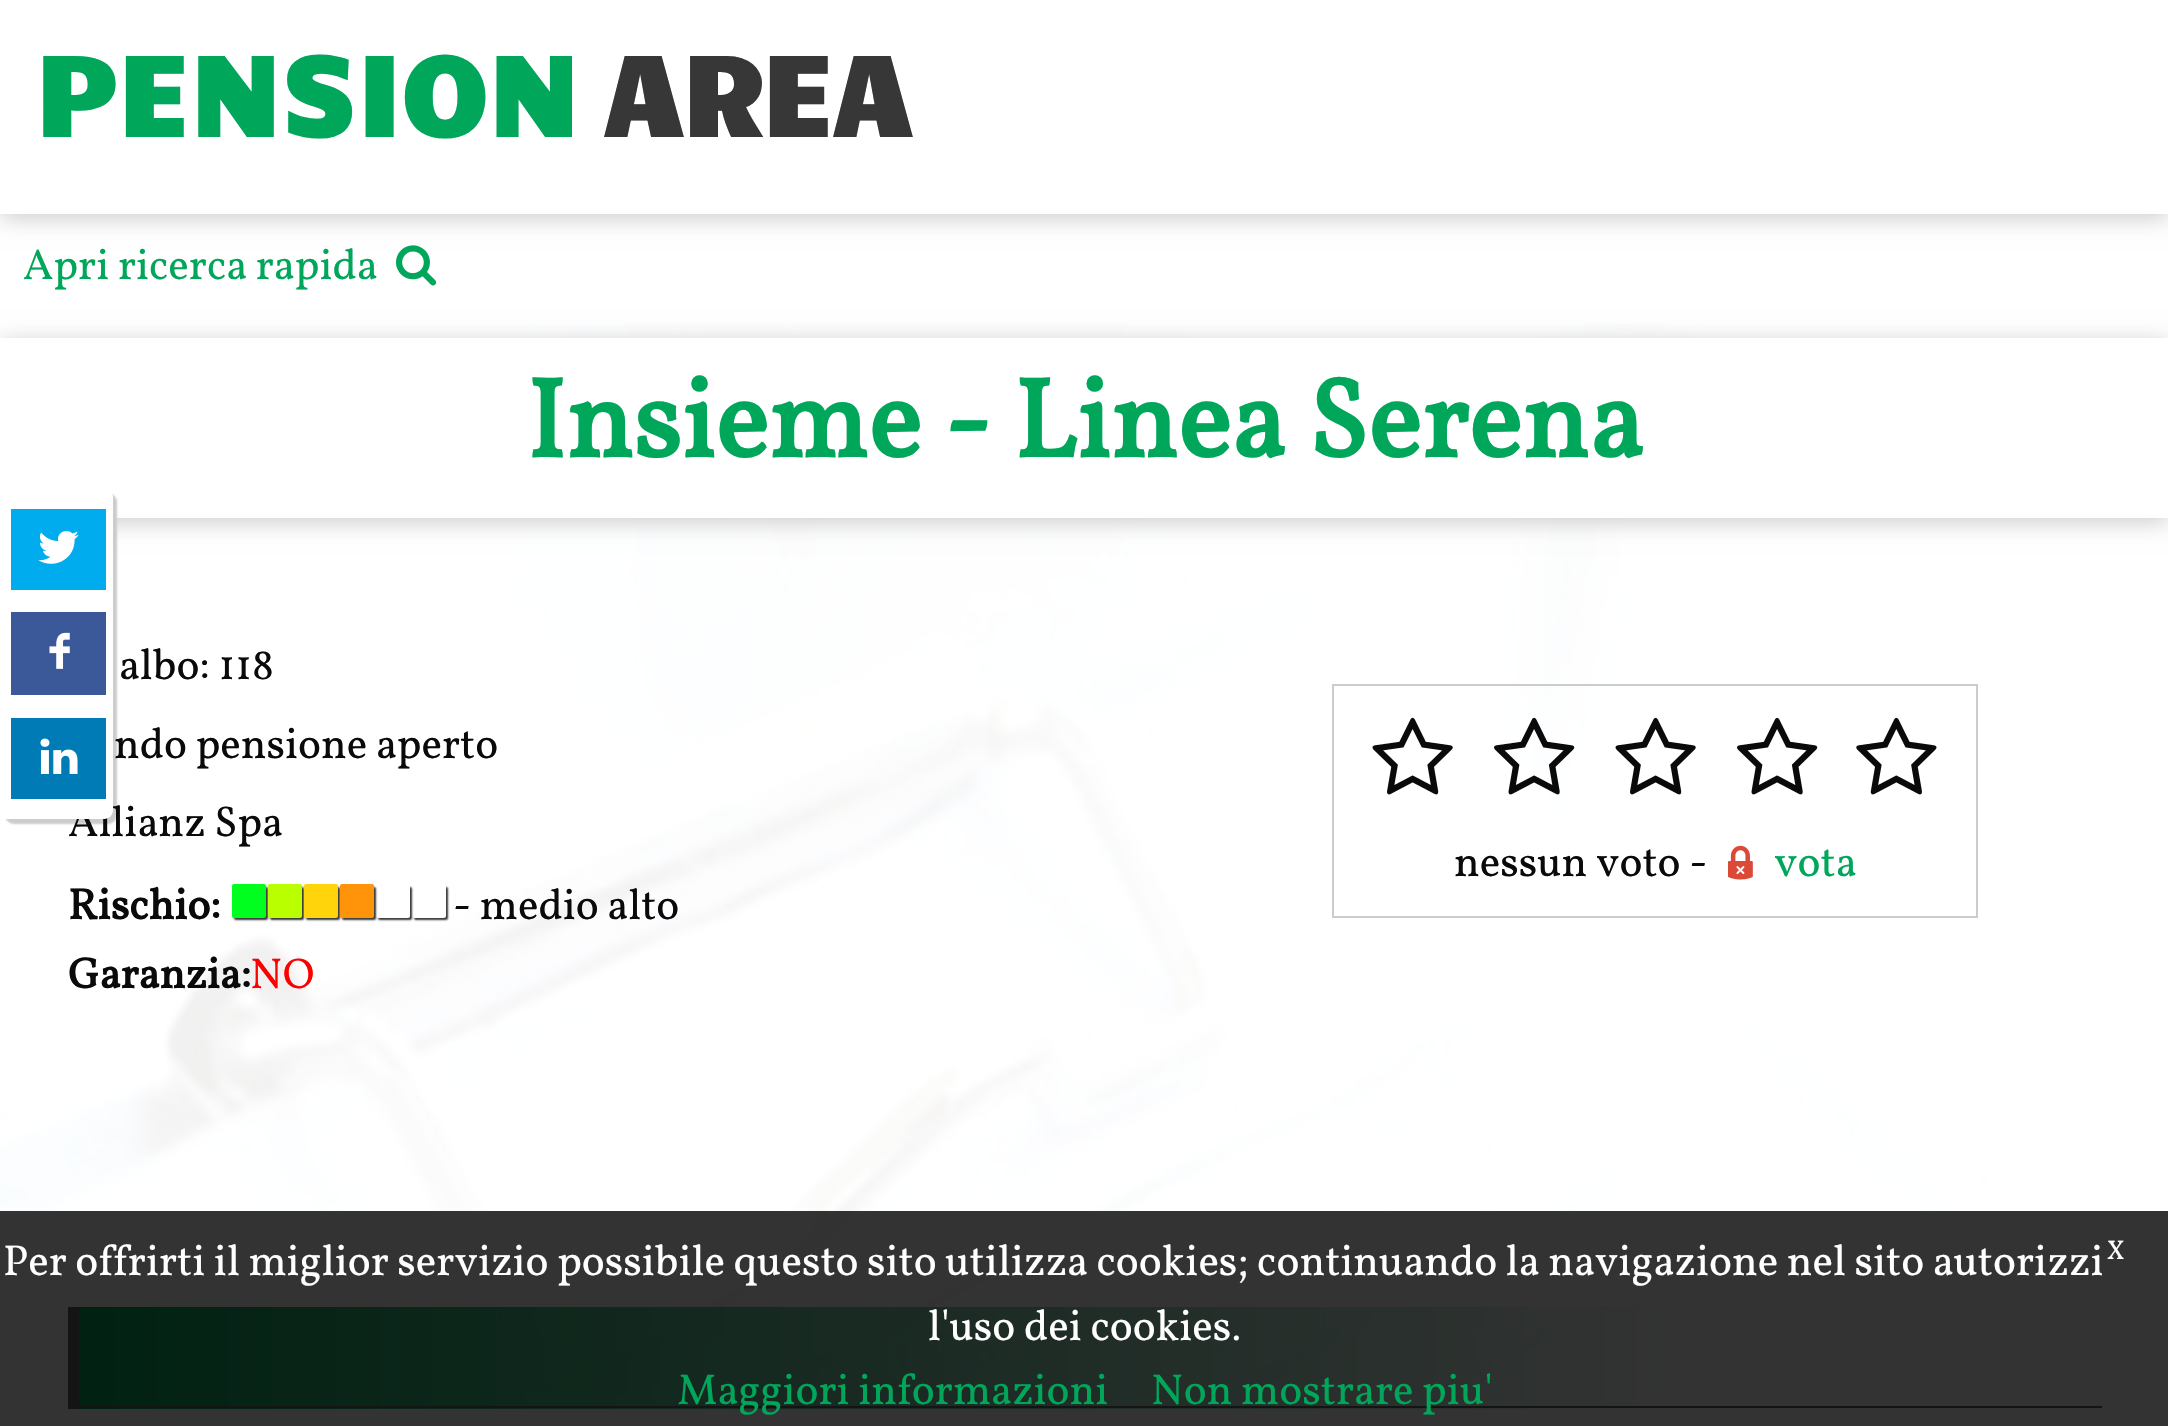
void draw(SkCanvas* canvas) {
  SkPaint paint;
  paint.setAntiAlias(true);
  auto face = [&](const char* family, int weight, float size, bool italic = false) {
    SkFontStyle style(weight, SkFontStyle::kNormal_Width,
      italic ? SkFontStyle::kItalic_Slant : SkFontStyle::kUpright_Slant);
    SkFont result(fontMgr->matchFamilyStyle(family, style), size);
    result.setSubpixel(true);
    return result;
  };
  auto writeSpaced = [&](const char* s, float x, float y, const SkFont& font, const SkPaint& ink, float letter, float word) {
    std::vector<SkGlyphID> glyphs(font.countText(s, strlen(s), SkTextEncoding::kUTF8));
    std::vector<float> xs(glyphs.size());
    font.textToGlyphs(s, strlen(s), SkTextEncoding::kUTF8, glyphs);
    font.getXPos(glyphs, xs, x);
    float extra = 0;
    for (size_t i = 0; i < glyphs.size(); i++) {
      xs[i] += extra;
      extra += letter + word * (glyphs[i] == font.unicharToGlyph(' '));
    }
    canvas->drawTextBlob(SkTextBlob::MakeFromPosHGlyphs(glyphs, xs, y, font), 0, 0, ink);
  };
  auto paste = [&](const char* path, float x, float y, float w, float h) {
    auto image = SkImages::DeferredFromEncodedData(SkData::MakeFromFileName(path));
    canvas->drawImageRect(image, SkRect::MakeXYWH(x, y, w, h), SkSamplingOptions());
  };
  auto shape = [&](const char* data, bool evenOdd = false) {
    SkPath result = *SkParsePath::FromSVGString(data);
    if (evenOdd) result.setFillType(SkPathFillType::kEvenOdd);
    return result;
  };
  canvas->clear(0xffffffff);
  paste("img/1.png", 0, 324, 2168, 1102);
  paste("img/2.png", 396, 245, 41, 41);
  paint.setColor(0xffcccccc);
  paint.setMaskFilter(SkMaskFilter::MakeBlur(kNormal_SkBlurStyle, 11));
  canvas->drawRect(SkRect::MakeXYWH(0, 5, 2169, 213), paint);
  paint.setMaskFilter(nullptr);
  paint.setColor(0xffffffff);
  canvas->drawRect(SkRect::MakeXYWH(0, 0, 2168, 214), paint);
  paint.setColor(0xccffffff);
  canvas->drawRect(SkRect::MakeXYWH(0, 324, 2168, 1102), paint);
  paint.setColor(0xffcccccc);
  paint.setMaskFilter(SkMaskFilter::MakeBlur(kNormal_SkBlurStyle, 11));
  canvas->drawRect(SkRect::MakeXYWH(0, 342, 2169, 180), paint);
  paint.setMaskFilter(nullptr);
  paint.setColor(0xffffffff);
  canvas->drawRect(SkRect::MakeXYWH(0, 338, 2168, 180), paint);
  paint.setColor(0xffcccccc);
  paint.setMaskFilter(SkMaskFilter::MakeBlur(kNormal_SkBlurStyle, 1));
  canvas->drawRoundRect(SkRect::MakeXYWH(5, 493, 112, 331), 9, 9, paint);
  paint.setMaskFilter(nullptr);
  paint.setStroke(true);
  paint.setStrokeWidth(2);
  canvas->drawRect(SkRect::MakeXYWH(1333, 685, 644, 232), paint);
  paste("img/6.png", 1372, 717, 81, 78);
  paste("img/7.png", 1494, 717, 81, 78);
  paste("img/8.png", 1615, 717, 81, 78);
  paste("img/9.png", 1737, 717, 81, 78);
  paste("img/10.png", 1856, 717, 81, 78);
  paste("img/11.png", 1728, 845, 25, 35);
  paint.setStroke(false);
  paint.setColor(0xff373737);
  paint.setMaskFilter(SkMaskFilter::MakeBlur(kNormal_SkBlurStyle, 1));
  canvas->drawRoundRect(SkRect::MakeXYWH(234, 887, 34, 33), 2, 2, paint);
  paint.setMaskFilter(nullptr);
  paint.setColor(0xff00ff1e);
  canvas->drawRoundRect(SkRect::MakeXYWH(232, 884, 34, 34), 2, 2, paint);
  paint.setColor(0xff373737);
  paint.setMaskFilter(SkMaskFilter::MakeBlur(kNormal_SkBlurStyle, 1));
  canvas->drawRoundRect(SkRect::MakeXYWH(270, 887, 34, 33), 2, 2, paint);
  paint.setMaskFilter(nullptr);
  paint.setColor(0xffbaff00);
  canvas->drawRoundRect(SkRect::MakeXYWH(268, 884, 34, 34), 2, 2, paint);
  paint.setColor(0xff373737);
  paint.setMaskFilter(SkMaskFilter::MakeBlur(kNormal_SkBlurStyle, 1));
  canvas->drawRoundRect(SkRect::MakeXYWH(306, 887, 34, 33), 2, 2, paint);
  paint.setMaskFilter(nullptr);
  paint.setColor(0xffffd40a);
  canvas->drawRoundRect(SkRect::MakeXYWH(304, 884, 34, 34), 2, 2, paint);
  paint.setColor(0xff373737);
  paint.setMaskFilter(SkMaskFilter::MakeBlur(kNormal_SkBlurStyle, 1));
  canvas->drawRoundRect(SkRect::MakeXYWH(342, 887, 34, 33), 2, 2, paint);
  paint.setMaskFilter(nullptr);
  paint.setColor(0xffff940a);
  canvas->drawRoundRect(SkRect::MakeXYWH(340, 884, 34, 34), 2, 2, paint);
  canvas->save();
  canvas->clipPath(shape("M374 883H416V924H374ZM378 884H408C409 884 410 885 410 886V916C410 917 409 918 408 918H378C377 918 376 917 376 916V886C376 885 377 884 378 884Z", true), true);
  paint.setColor(0xff373737);
  paint.setMaskFilter(SkMaskFilter::MakeBlur(kNormal_SkBlurStyle, 1));
  canvas->drawRoundRect(SkRect::MakeXYWH(378, 887, 34, 33), 2, 2, paint);
  paint.setMaskFilter(nullptr);
  canvas->restore();
  canvas->save();
  canvas->clipPath(shape("M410 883H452V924H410ZM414 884H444C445 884 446 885 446 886V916C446 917 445 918 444 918H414C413 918 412 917 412 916V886C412 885 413 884 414 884Z", true), true);
  paint.setMaskFilter(SkMaskFilter::MakeBlur(kNormal_SkBlurStyle, 1));
  canvas->drawRoundRect(SkRect::MakeXYWH(414, 887, 34, 33), 2, 2, paint);
  paint.setMaskFilter(nullptr);
  canvas->restore();
  {
    const SkColor colors[] = {0xff00a65a, 0x0000a65a, 0x00ffffff};
    const float stops[] = {0, 0.8f, 1};
    const SkPoint ends[] = {{79, 1357}, {2102, 1357}};
    paint.setShader(SkGradientShader::MakeLinear(ends, colors, stops, 3, SkTileMode::kClamp));
    paint.setAlpha(255);
  }
  canvas->drawRect(SkRect::MakeXYWH(79, 1307, 1584, 102), paint);
  paint.setShader(nullptr);
  {
    const struct { float x, y, w, h; SkColor color; } items[] = {
      {79, 1406, 2023, 2, 0xff646464},
      {68, 1307, 11, 102, 0xff646464},
      {0, 1211, 2168, 215, 0xcc000000},
    };
    for (auto [x, y, w, h, color] : items) {
      paint.setColor(color);
      canvas->drawRect(SkRect::MakeXYWH(x, y, w, h), paint);
    }
  }
  auto f0 = face("Candal", 700, 112.5f);
  paint.setColor(0xff00a65a);
  canvas->drawString("PENSION", 34, 137, f0, paint);
  paint.setColor(0xff373737);
  canvas->drawString("AREA", 604, 137, f0, paint);
  auto f1 = face("Vollkorn", 400, 43.2f);
  paint.setColor(0xff00a65a);
  canvas->drawString("Apri ricerca rapida", 23, 279, f1, paint);
  auto f2 = face("Vollkorn", 700, 112.5f);
  canvas->drawString("Insieme - Linea Serena", 526, 457, f2, paint);
  paint.setColor(0xff0a0a0a);
  {
    const struct { const char* s; float x, y; } items[] = {
      {"albo: 118", 119, 679},
      {"ndo pensione aperto", 114, 758},
      {"Allianz Spa", 68, 836},
    };
    for (auto [s, x, y] : items) {
      canvas->drawString(s, x, y, f1, paint);
    }
  }
  paint.setColor(0xffffffff);
  canvas->drawPath(shape("M0 488H104C109 488 113 492 113 497V810C113 815 109 819 104 819H0Z"), paint);
  paint.setColor(0xff007bb6);
  canvas->drawRect(SkRect::MakeXYWH(11, 718, 95, 81), paint);
  paste("img/5.png", 40, 738, 38, 36);
  paint.setColor(0xff3b5998);
  canvas->drawRect(SkRect::MakeXYWH(11, 612, 95, 83), paint);
  paste("img/4.png", 49, 632, 21, 37);
  paint.setColor(0xff00aced);
  canvas->drawRect(SkRect::MakeXYWH(11, 509, 95, 81), paint);
  paste("img/3.png", 38, 531, 41, 33);
  paint.setColor(0xff0a0a0a);
  canvas->drawString("nessun voto -", 1454, 876, f1, paint);
  paint.setColor(0xff00a65a);
  canvas->drawString("vota", 1774, 876, f1, paint);
  auto f3 = face("Vollkorn", 700, 43.2f);
  paint.setColor(0xff0a0a0a);
  canvas->drawString("Rischio:", 68, 919, f3, paint);
  canvas->drawString("- medio alto", 453, 919, f1, paint);
  canvas->drawString("Garanzia:", 68, 988, f3, paint);
  paint.setColor(0xffff0000);
  canvas->drawString("NO", 250, 988, f1, paint);
  paint.setColor(0xffffffff);
  writeSpaced("Per offrirti il miglior servizio possibile questo sito utilizza cookies; continuando la navigazione nel sito autorizzi", 3, 1275, f1, paint, 0, -0.1f);
  auto f4 = face("Vollkorn", 400, 27);
  canvas->drawString("X", 2107, 1259, f4, paint);
  canvas->drawString("l'uso dei cookies.", 928, 1340, f1, paint);
  paint.setColor(0xff00a65a);
  canvas->drawString("Maggiori informazioni", 677, 1404, f1, paint);
  canvas->drawString("Non mostrare piu'", 1151, 1404, f1, paint);
}
